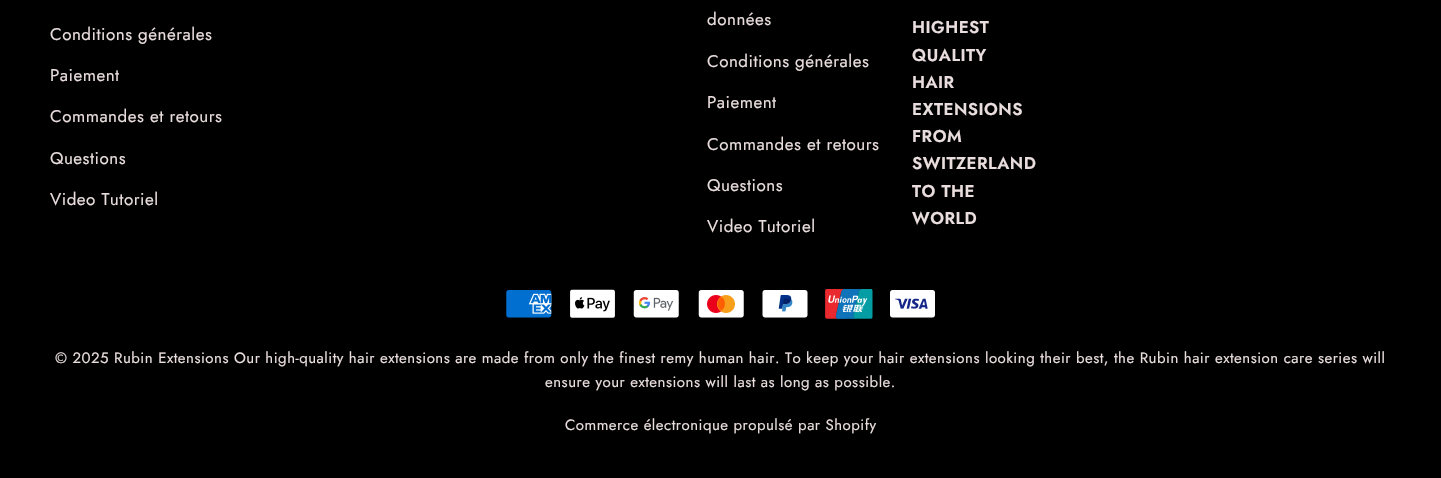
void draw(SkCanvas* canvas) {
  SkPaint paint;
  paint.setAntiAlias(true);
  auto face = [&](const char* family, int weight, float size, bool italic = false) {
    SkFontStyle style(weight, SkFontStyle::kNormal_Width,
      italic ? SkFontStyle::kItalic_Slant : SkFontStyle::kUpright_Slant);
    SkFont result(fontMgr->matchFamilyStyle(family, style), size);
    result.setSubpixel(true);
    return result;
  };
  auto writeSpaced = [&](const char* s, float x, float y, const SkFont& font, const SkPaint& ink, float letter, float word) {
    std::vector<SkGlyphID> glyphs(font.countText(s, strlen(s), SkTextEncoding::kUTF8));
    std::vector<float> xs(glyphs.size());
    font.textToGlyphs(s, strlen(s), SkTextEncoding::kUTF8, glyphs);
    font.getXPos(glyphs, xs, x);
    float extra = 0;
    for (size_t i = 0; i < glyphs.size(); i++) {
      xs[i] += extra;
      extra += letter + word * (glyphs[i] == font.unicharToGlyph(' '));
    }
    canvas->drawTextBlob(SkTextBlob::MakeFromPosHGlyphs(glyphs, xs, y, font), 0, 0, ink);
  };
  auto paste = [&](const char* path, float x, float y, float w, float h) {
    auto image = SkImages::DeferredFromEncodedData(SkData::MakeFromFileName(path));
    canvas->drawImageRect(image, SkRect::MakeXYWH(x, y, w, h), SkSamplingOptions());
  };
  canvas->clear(0xff000000);
  paste("img/1.png", 506, 290, 46, 28);
  paste("img/2.png", 570, 289, 45, 29);
  paste("img/3.png", 633, 290, 46, 28);
  paste("img/4.png", 698, 290, 46, 28);
  paste("img/5.png", 762, 290, 46, 28);
  paste("img/6.png", 825, 289, 48, 30);
  paste("img/7.png", 890, 290, 45, 28);
  auto f0 = face("Jost", 400, 17);
  paint.setColor(0xffe9dddd);
  {
    const struct { const char* s; float x, y; } items[] = {
      {"Conditions générales", 50, 40},
      {"Paiement", 50, 81},
      {"Commandes et retours", 50, 122},
      {"Questions", 50, 164},
      {"Video Tutoriel", 50, 205},
      {"données", 707, 25},
      {"Conditions générales", 707, 67},
      {"Paiement", 707, 108},
      {"Commandes et retours", 707, 150},
      {"Questions", 707, 191},
      {"Video Tutoriel", 707, 232},
    };
    for (auto [s, x, y] : items) {
      writeSpaced(s, x, y, f0, paint, 0.5f, 0);
    }
  }
  auto f1 = face("Jost", 600, 17);
  {
    const struct { const char* s; float x, y; } items[] = {
      {"HIGHEST", 912, 33},
      {"QUALITY", 912, 61},
      {"HAIR", 912, 88},
      {"EXTENSIONS", 912, 115},
      {"FROM", 912, 142},
      {"SWITZERLAND", 912, 169},
      {"TO THE", 912, 197},
      {"WORLD", 912, 224},
    };
    for (auto [s, x, y] : items) {
      writeSpaced(s, x, y, f1, paint, 0.5f, 0);
    }
  }
  auto f2 = face("Jost", 400, 15);
  {
    const struct { const char* s; float x, y; } items[] = {
      {"© 2025 Rubin Extensions Our high-quality hair extensions are made from only the finest remy human hair. To keep your hair extensions looking their best, the Rubin hair extension care series will", 55, 363},
      {"ensure your extensions will last as long as possible.", 545, 387},
      {"Commerce électronique propulsé par Shopify", 565, 430},
    };
    for (auto [s, x, y] : items) {
      writeSpaced(s, x, y, f2, paint, 0.5f, 0);
    }
  }
}
